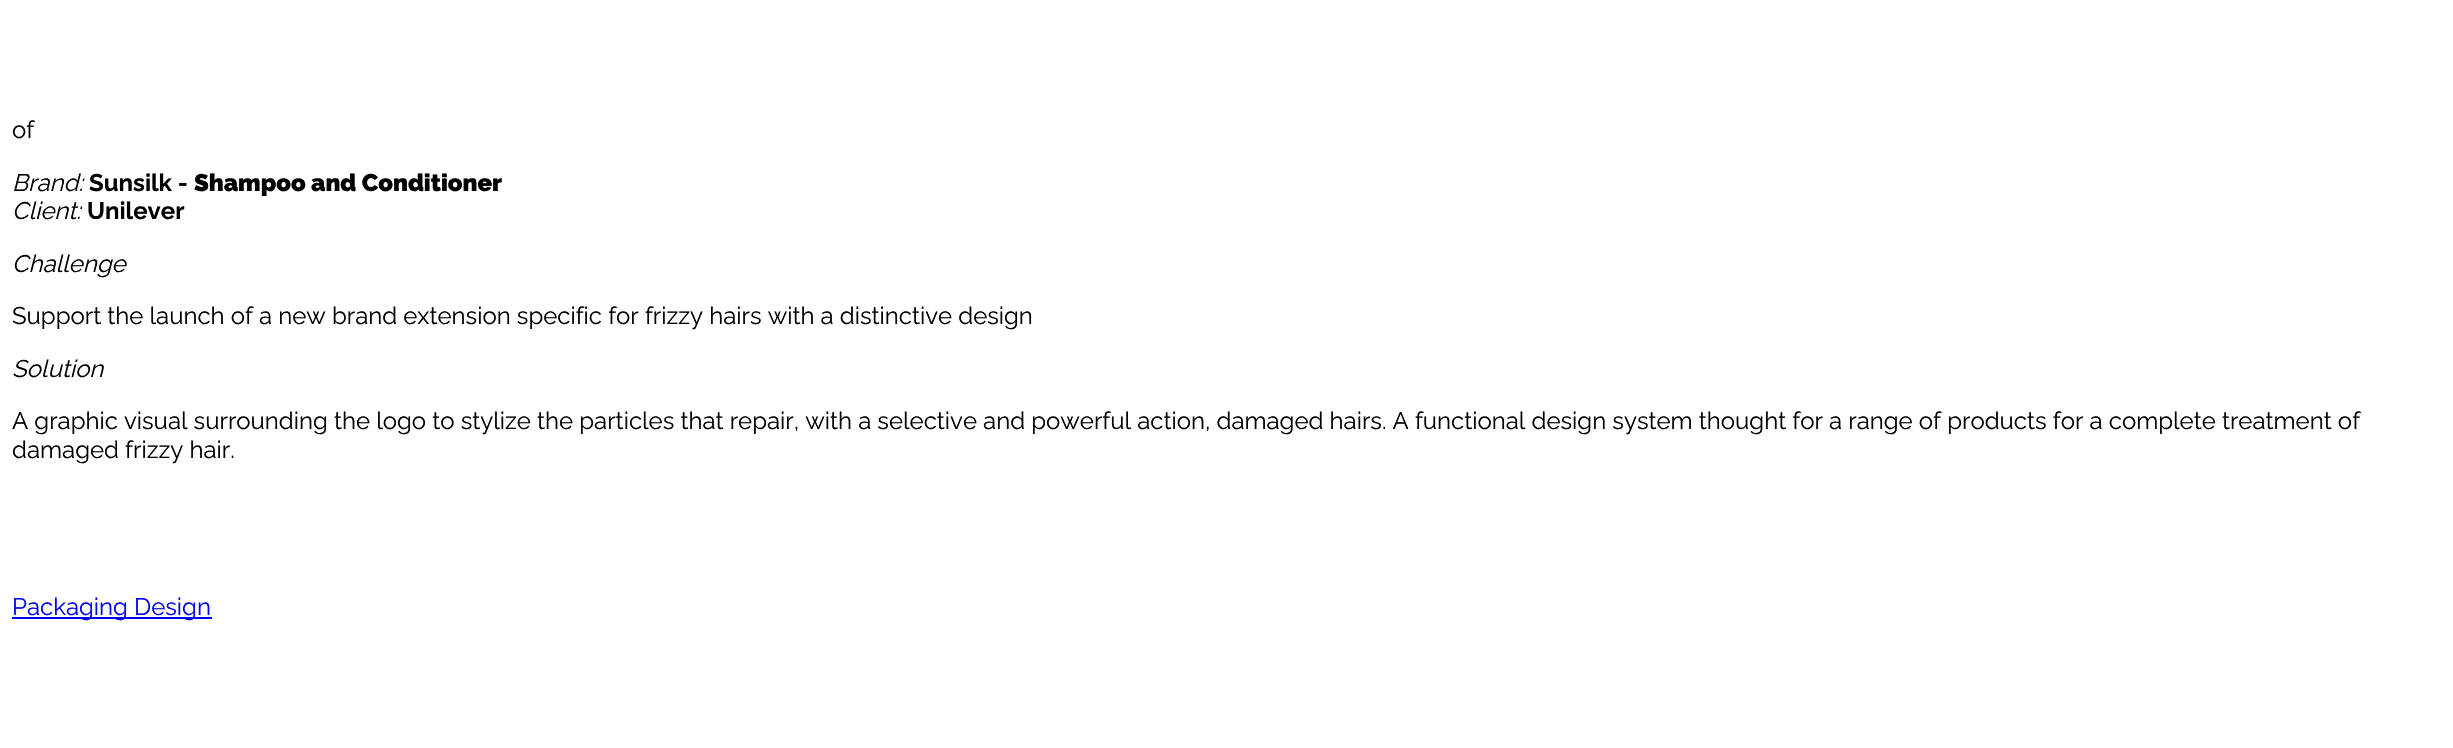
void draw(SkCanvas* canvas) {
  SkPaint paint;
  paint.setAntiAlias(true);
  auto face = [&](const char* family, int weight, float size, bool italic = false) {
    SkFontStyle style(weight, SkFontStyle::kNormal_Width,
      italic ? SkFontStyle::kItalic_Slant : SkFontStyle::kUpright_Slant);
    SkFont result(fontMgr->matchFamilyStyle(family, style), size);
    result.setSubpixel(true);
    return result;
  };
  canvas->clear(0xffffffff);
  paint.setColor(0xff0000ee);
  canvas->drawRect(SkRect::MakeXYWH(12, 617, 200, 2), paint);
  auto f0 = face("Raleway", 400, 24);
  paint.setColor(0xff000000);
  canvas->drawString("of", 12, 138, f0, paint);
  auto f1 = face("Raleway", 400, 24, true);
  canvas->drawString("Brand:", 12, 191, f1, paint);
  auto f2 = face("Raleway", 700, 24);
  canvas->drawString("Sunsilk -", 89, 191, f2, paint);
  auto f3 = face("Raleway", 900, 24);
  canvas->drawString("Shampoo and Conditioner", 194, 191, f3, paint);
  canvas->drawString("Client:", 12, 219, f1, paint);
  canvas->drawString("Unilever", 87, 219, f2, paint);
  canvas->drawString("Challenge", 12, 272, f1, paint);
  canvas->drawString("Support the launch of a new brand extension specific for frizzy hairs with a distinctive design", 12, 324, f0, paint);
  canvas->drawString("Solution", 12, 377, f1, paint);
  canvas->drawString("A graphic visual surrounding the logo to stylize the particles that repair, with a selective and powerful action, damaged hairs. A functional design system thought for a range of products for a complete treatment of", 12, 429, f0, paint);
  canvas->drawString("damaged frizzy hair.", 12, 458, f0, paint);
  paint.setColor(0xff0000ee);
  canvas->drawString("Packaging Design", 12, 615, f0, paint);
}
